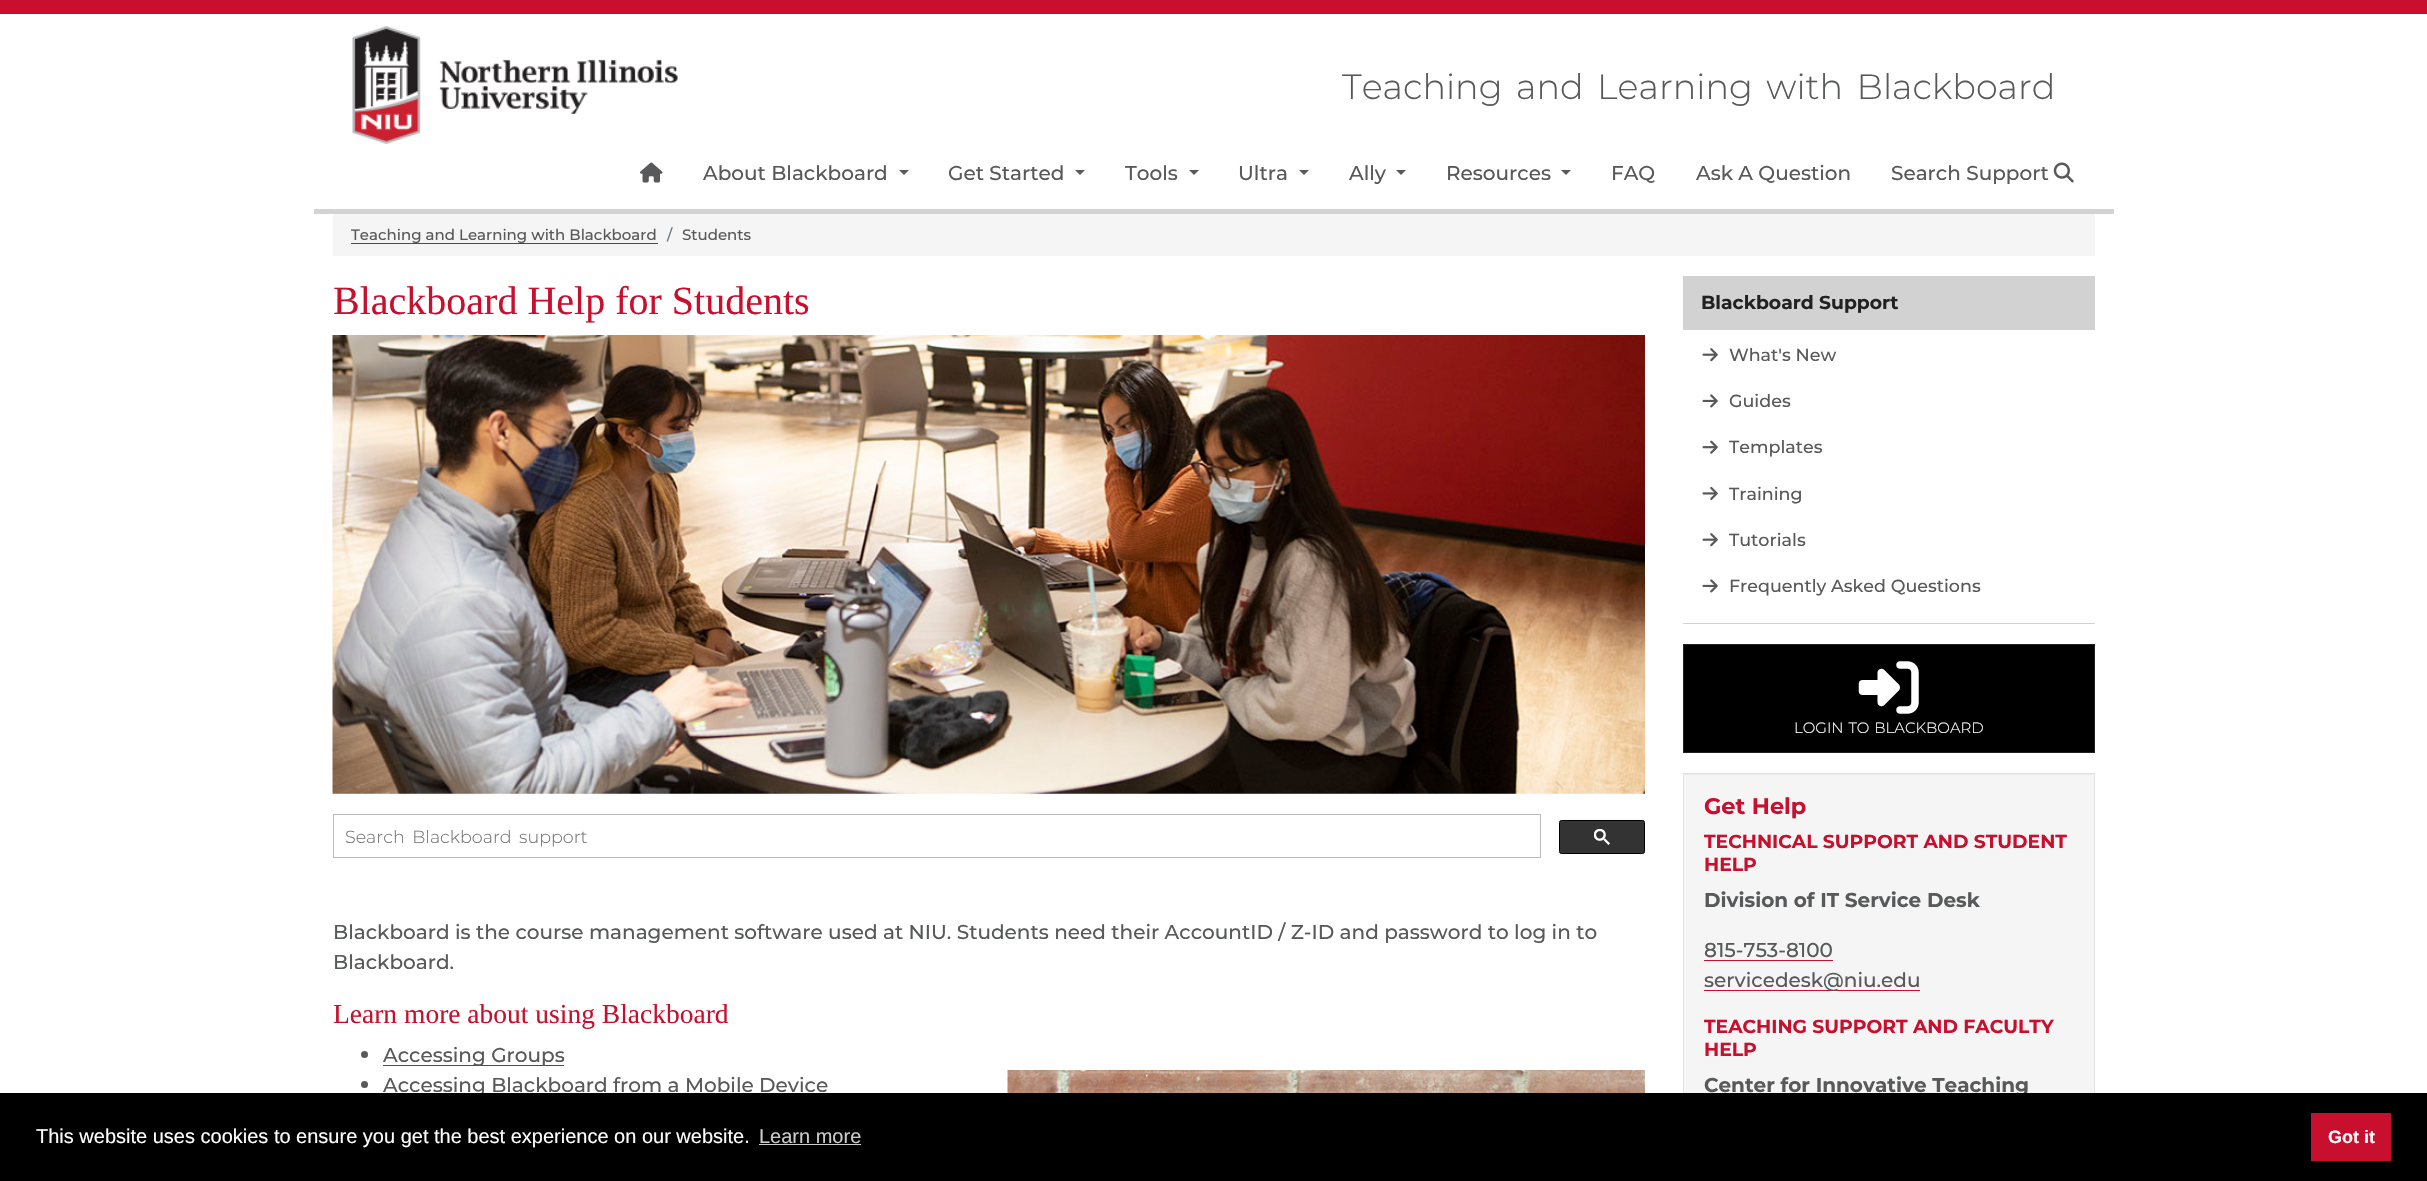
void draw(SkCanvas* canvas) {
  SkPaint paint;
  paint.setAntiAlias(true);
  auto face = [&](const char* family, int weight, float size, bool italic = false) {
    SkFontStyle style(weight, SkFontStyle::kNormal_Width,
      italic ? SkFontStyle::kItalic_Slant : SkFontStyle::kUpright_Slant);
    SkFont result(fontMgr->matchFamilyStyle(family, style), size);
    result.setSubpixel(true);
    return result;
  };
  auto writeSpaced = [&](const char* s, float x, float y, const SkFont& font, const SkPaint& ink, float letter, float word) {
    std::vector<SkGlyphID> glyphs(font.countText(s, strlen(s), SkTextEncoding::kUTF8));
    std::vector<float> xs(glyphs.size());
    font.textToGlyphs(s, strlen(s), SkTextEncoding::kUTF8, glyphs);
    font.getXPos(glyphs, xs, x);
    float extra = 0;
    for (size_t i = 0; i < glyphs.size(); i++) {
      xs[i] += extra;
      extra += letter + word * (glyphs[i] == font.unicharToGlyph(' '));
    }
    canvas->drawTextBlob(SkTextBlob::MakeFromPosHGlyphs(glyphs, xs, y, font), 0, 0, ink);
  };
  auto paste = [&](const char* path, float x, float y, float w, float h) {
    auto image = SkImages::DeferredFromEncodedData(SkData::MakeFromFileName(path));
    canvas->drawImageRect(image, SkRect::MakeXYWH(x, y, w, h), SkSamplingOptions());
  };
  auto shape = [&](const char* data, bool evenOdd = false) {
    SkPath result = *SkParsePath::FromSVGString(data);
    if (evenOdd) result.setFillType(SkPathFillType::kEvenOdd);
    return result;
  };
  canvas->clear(0xffffffff);
  paint.setColor(0xffc8102e);
  canvas->drawRect(SkRect::MakeXYWH(0, 0, 2427, 14), paint);
  paste("img/1.png", 352, 26, 326, 118);
  paste("img/2.png", 640, 162, 23, 21);
  paint.setColor(0xff58595a);
  canvas->drawPath(shape("M899 170H909L904 175Z"), paint);
  canvas->drawPath(shape("M1075 170H1085L1080 175Z"), paint);
  canvas->drawPath(shape("M1189 170H1199L1194 175Z"), paint);
  canvas->drawPath(shape("M1299 170H1309L1304 175Z"), paint);
  canvas->drawPath(shape("M1396 170H1406L1401 175Z"), paint);
  canvas->drawPath(shape("M1561 170H1571L1566 175Z"), paint);
  paste("img/3.png", 2053, 162, 21, 21);
  {
    const struct { float x, y, w, h; SkColor color; } items[] = {
      {314, 209, 1800, 5, 0xffd2d3d3},
      {333, 214, 1762, 42, 0xfff5f5f5},
      {351, 243, 307, 1, 0xffc8102e},
    };
    for (auto [x, y, w, h, color] : items) {
      paint.setColor(color);
      canvas->drawRect(SkRect::MakeXYWH(x, y, w, h), paint);
    }
  }
  paste("img/4.png", 332, 335, 1313, 459);
  paint.setStroke(true);
  paint.setStrokeWidth(1);
  paint.setColor(0xffbbbbbb);
  canvas->drawRect(SkRect::MakeXYWH(333.5f, 814.5f, 1207, 43), paint);
  paint.setStroke(false);
  paint.setColor(0xff333333);
  canvas->drawRoundRect(SkRect::MakeXYWH(1559.5f, 820.5f, 85, 33), 2, 2, paint);
  paint.setStroke(true);
  paint.setColor(0xff000000);
  canvas->drawRoundRect(SkRect::MakeXYWH(1559.5f, 820.5f, 85, 33), 2, 2, paint);
  paste("img/5.png", 1594, 829, 16, 16);
  paint.setStroke(false);
  paint.setColor(0xff58595a);
  canvas->drawCircle(364.5f, 1054.5f, 3.5f, paint);
  paint.setColor(0xffc8102e);
  canvas->drawRect(SkRect::MakeXYWH(383, 1065, 181, 1), paint);
  paint.setColor(0xff58595a);
  canvas->drawCircle(364.5f, 1084.5f, 3.5f, paint);
  paste("img/6.png", 1007, 1070, 638, 23);
  paint.setColor(0xffd1d2d2);
  canvas->drawRect(SkRect::MakeXYWH(1683, 623, 412, 1), paint);
  paint.setColor(0xffd2d2d3);
  canvas->drawRect(SkRect::MakeXYWH(1683, 276, 412, 54), paint);
  paste("img/7.png", 1702, 348, 16, 14);
  paste("img/8.png", 1702, 394, 16, 14);
  paste("img/9.png", 1702, 440, 16, 14);
  paste("img/10.png", 1702, 486, 16, 14);
  paste("img/7.png", 1702, 533, 16, 14);
  paste("img/8.png", 1702, 579, 16, 14);
  paint.setColor(0xff000000);
  canvas->drawRect(SkRect::MakeXYWH(1683.5f, 644.5f, 411, 108), paint);
  paint.setStroke(true);
  paint.setColor(0xff222222);
  canvas->drawRect(SkRect::MakeXYWH(1683.5f, 644.5f, 411, 108), paint);
  paste("img/11.png", 1858, 661, 61, 53);
  paint.setStroke(false);
  paint.setColor(0xfff5f5f5);
  canvas->drawRect(SkRect::MakeXYWH(1684, 775, 410, 318), paint);
  paint.setColor(0xffe9e9e9);
  canvas->drawRect(SkRect::MakeXYWH(1684, 774, 410, 1), paint);
  paint.setStroke(true);
  paint.setColor(0xffe3e3e3);
  canvas->drawRect(SkRect::MakeXYWH(1683.5f, 773.5f, 411, 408), paint);
  paint.setStroke(false);
  paint.setColor(0xffc8102e);
  canvas->drawRect(SkRect::MakeXYWH(1704, 960, 129, 1), paint);
  canvas->drawRect(SkRect::MakeXYWH(1704, 990, 216, 1), paint);
  auto f0 = face("Montserrat", 300, 35);
  paint.setColor(0xff58595a);
  writeSpaced("Teaching and Learning with Blackboard", 1342, 99, f0, paint, 0, 4.5f);
  auto f1 = face("Montserrat", 500, 20);
  {
    const struct { const char* s; float x, y; } items[] = {
      {"About Blackboard", 703, 180},
      {"Get Started", 948, 180},
      {"Tools", 1125, 180},
      {"Ultra", 1238, 180},
      {"Ally", 1349, 180},
      {"Resources", 1446, 180},
      {"FAQ", 1611, 180},
      {"Ask A Question", 1696, 180},
      {"Search Support", 1891, 180},
    };
    for (auto [s, x, y] : items) {
      canvas->drawString(s, x, y, f1, paint);
    }
  }
  auto f2 = face("Montserrat", 500, 15);
  canvas->drawString("Teaching and Learning with Blackboard", 351, 240, f2, paint);
  paint.setColor(0xff6c757d);
  canvas->drawString("/", 667, 240, f2, paint);
  paint.setColor(0xff58595a);
  canvas->drawString("Students", 682, 240, f2, paint);
  auto f3 = face("Liberation Serif", 400, 40);
  paint.setColor(0xffc8102e);
  canvas->drawString("Blackboard Help for Students", 333, 314, f3, paint);
  auto f4 = face("Montserrat", 300, 17.5f);
  paint.setColor(0xff757575);
  writeSpaced("Search Blackboard support", 345, 843, f4, paint, 0, 3);
  paint.setColor(0xff58595a);
  canvas->drawString("Blackboard is the course management software used at NIU. Students need their AccountID / Z-ID and password to log in to", 333, 939, f1, paint);
  canvas->drawString("Blackboard.", 333, 969, f1, paint);
  auto f5 = face("Liberation Serif", 400, 27.5f);
  paint.setColor(0xffc8102e);
  canvas->drawString("Learn more about using Blackboard", 333, 1023, f5, paint);
  paint.setColor(0xff58595a);
  canvas->drawString("Accessing Groups", 383, 1062, f1, paint);
  canvas->drawString("Accessing Blackboard from a Mobile Device", 383, 1092, f1, paint);
  auto f6 = face("Montserrat", 700, 18.75f);
  paint.setColor(0xff222222);
  canvas->drawString("Blackboard Support", 1701, 309, f6, paint);
  auto f7 = face("Montserrat", 500, 17.5f);
  paint.setColor(0xff58595a);
  {
    const struct { const char* s; float x, y; } items[] = {
      {"What's New", 1729, 361},
      {"Guides", 1729, 407},
      {"Templates", 1729, 453},
      {"Training", 1729, 500},
      {"Tutorials", 1729, 546},
      {"Frequently Asked Questions", 1729, 592},
    };
    for (auto [s, x, y] : items) {
      canvas->drawString(s, x, y, f7, paint);
    }
  }
  auto f8 = face("Montserrat", 300, 15);
  paint.setColor(0xffffffff);
  writeSpaced("LOGIN TO BLACKBOARD", 1794, 733, f8, paint, 0, 1);
  auto f9 = face("Montserrat", 700, 22.5f);
  paint.setColor(0xffc8102e);
  canvas->drawString("Get Help", 1704, 814, f9, paint);
  canvas->drawString("TECHNICAL SUPPORT AND STUDENT", 1704, 848, f6, paint);
  canvas->drawString("HELP", 1704, 871, f6, paint);
  auto f10 = face("Montserrat", 700, 20);
  paint.setColor(0xff58595a);
  canvas->drawString("Division of IT Service Desk", 1704, 907, f10, paint);
  canvas->drawString("815-753-8100", 1704, 957, f1, paint);
  canvas->drawString("servicedesk@niu.edu", 1704, 987, f1, paint);
  paint.setColor(0xffc8102e);
  canvas->drawString("TEACHING SUPPORT AND FACULTY", 1704, 1033, f6, paint);
  canvas->drawString("HELP", 1704, 1056, f6, paint);
  paint.setColor(0xff58595a);
  canvas->drawString("Center for Innovative Teaching", 1704, 1092, f10, paint);
  paint.setColor(0xff000000);
  canvas->drawRect(SkRect::MakeXYWH(0, 1093, 2427, 88), paint);
  auto f11 = face("Liberation Sans", 400, 20);
  paint.setColor(0xffffffff);
  canvas->drawString("This website uses cookies to ensure you get the best experience on our website.", 36, 1143, f11, paint);
  paint.setColor(0xffcccccc);
  canvas->drawString("Learn more", 759, 1143, f11, paint);
  canvas->drawRect(SkRect::MakeXYWH(759, 1144, 102, 1), paint);
  paint.setColor(0xffc8102e);
  canvas->drawRect(SkRect::MakeXYWH(2311, 1113, 80, 48), paint);
  auto f12 = face("Liberation Sans", 700, 18);
  paint.setColor(0xffffffff);
  canvas->drawString("Got it", 2328, 1143, f12, paint);
}
